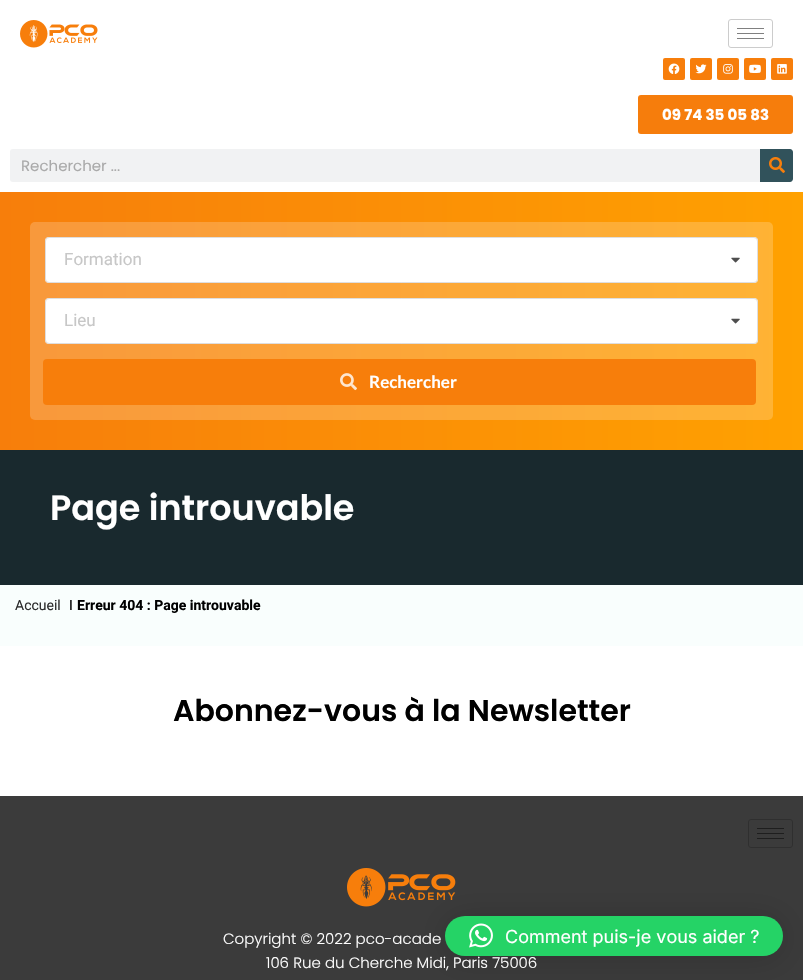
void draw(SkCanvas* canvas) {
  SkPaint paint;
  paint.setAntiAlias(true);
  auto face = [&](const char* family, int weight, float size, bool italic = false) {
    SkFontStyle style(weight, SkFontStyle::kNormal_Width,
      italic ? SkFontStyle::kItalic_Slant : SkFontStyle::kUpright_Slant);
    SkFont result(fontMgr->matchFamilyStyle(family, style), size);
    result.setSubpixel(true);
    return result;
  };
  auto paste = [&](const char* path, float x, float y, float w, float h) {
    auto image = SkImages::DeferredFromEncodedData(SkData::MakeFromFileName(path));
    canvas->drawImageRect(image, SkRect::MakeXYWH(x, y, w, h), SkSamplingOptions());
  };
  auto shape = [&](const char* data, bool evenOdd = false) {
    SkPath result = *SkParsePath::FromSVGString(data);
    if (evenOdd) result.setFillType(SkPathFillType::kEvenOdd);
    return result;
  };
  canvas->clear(0xfff9fefd);
  paint.setColor(0xffffffff);
  canvas->drawRect(SkRect::MakeXYWH(0, 0, 803, 192), paint);
  paste("img/1.png", 20, 20, 78, 28);
  paint.setStroke(true);
  paint.setStrokeWidth(1);
  paint.setColor(0xffcccccc);
  canvas->drawRoundRect(SkRect::MakeXYWH(728.5f, 19.5f, 44, 28), 2.5f, 2.5f, paint);
  paint.setStroke(false);
  {
    const struct { float x, y, w, h; SkColor color; } items[] = {
      {737, 28, 27, 1, 0xff808080},
      {737, 33, 27, 1, 0xff808080},
      {737, 38, 27, 1, 0xff808080},
    };
    for (auto [x, y, w, h, color] : items) {
      paint.setColor(color);
      canvas->drawRect(SkRect::MakeXYWH(x, y, w, h), paint);
    }
  }
  paint.setColor(0xfff77e0b);
  canvas->drawRoundRect(SkRect::MakeXYWH(663, 58, 22, 22), 2, 2, paint);
  paste("img/2.png", 668, 63, 12, 11);
  canvas->drawRoundRect(SkRect::MakeXYWH(690, 58, 22, 22), 2, 2, paint);
  paste("img/3.png", 695, 64, 12, 10);
  canvas->drawRoundRect(SkRect::MakeXYWH(717, 58, 22, 22), 2, 2, paint);
  paste("img/4.png", 723, 64, 10, 10);
  canvas->drawRoundRect(SkRect::MakeXYWH(744, 58, 22, 22), 2, 2, paint);
  paste("img/5.png", 749, 64, 12, 9);
  canvas->drawRoundRect(SkRect::MakeXYWH(771, 58, 22, 22), 2, 2, paint);
  paste("img/6.png", 777, 64, 10, 10);
  paint.setColor(0xfff67d0c);
  canvas->drawRoundRect(SkRect::MakeXYWH(638, 95, 155, 39), 3, 3, paint);
  paint.setColor(0xfff1f2f3);
  canvas->drawRoundRect(SkRect::MakeXYWH(10, 149, 783, 33), 3, 3, paint);
  paint.setColor(0xff31525b);
  canvas->drawPath(shape("M760 149H790C791.5 149 793 150.5 793 152V179C793 180.5 791.5 182 790 182H760Z"), paint);
  paste("img/7.png", 769, 157, 16, 16);
  {
    const SkColor colors[] = {0xfff77e0b, 0xffffa101};
    const float stops[] = {0, 1};
    const SkPoint ends[] = {{0, 321}, {803, 321}};
    paint.setShader(SkGradientShader::MakeLinear(ends, colors, stops, 2, SkTileMode::kClamp));
    paint.setAlpha(255);
  }
  canvas->drawRect(SkRect::MakeXYWH(0, 192, 803, 258), paint);
  paint.setShader(nullptr);
  paint.setColor(0x33ffffff);
  canvas->drawRoundRect(SkRect::MakeXYWH(30, 222, 743, 198), 5, 5, paint);
  paint.setColor(0xffffffff);
  canvas->drawRoundRect(SkRect::MakeXYWH(45, 237, 713, 46), 4, 4, paint);
  paint.setStroke(true);
  paint.setColor(0x26222426);
  canvas->drawRoundRect(SkRect::MakeXYWH(45.5f, 237.5f, 712, 45), 3.5f, 3.5f, paint);
  paste("img/8.png", 731, 257, 9, 6);
  paint.setStroke(false);
  paint.setColor(0xffffffff);
  canvas->drawRoundRect(SkRect::MakeXYWH(45, 298, 713, 46), 4, 4, paint);
  paint.setStroke(true);
  paint.setColor(0x26222426);
  canvas->drawRoundRect(SkRect::MakeXYWH(45.5f, 298.5f, 712, 45), 3.5f, 3.5f, paint);
  paste("img/8.png", 731, 318, 9, 6);
  paint.setStroke(false);
  paint.setColor(0xfff77e0b);
  canvas->drawRoundRect(SkRect::MakeXYWH(43, 359, 713, 46), 4, 4, paint);
  paste("img/9.png", 340, 373, 17, 18);
  {
    const struct { float x, y, w, h; SkColor color; } items[] = {
      {0, 450, 803, 135, 0xff19292e},
      {0, 646, 803, 150, 0xffffffff},
      {0, 796, 803, 184, 0xff3b3b3b},
    };
    for (auto [x, y, w, h, color] : items) {
      paint.setColor(color);
      canvas->drawRect(SkRect::MakeXYWH(x, y, w, h), paint);
    }
  }
  paint.setStroke(true);
  paint.setColor(0xff2f2f2f);
  canvas->drawRoundRect(SkRect::MakeXYWH(748.5f, 819.5f, 44, 28), 2.5f, 2.5f, paint);
  paint.setStroke(false);
  {
    const struct { float x, y, w, h; SkColor color; } items[] = {
      {757, 828, 27, 1, 0xff1e1e1e},
      {757, 833, 27, 1, 0xff1e1e1e},
      {757, 838, 27, 1, 0xff1e1e1e},
    };
    for (auto [x, y, w, h, color] : items) {
      paint.setColor(color);
      canvas->drawRect(SkRect::MakeXYWH(x, y, w, h), paint);
    }
  }
  paste("img/10.png", 347, 868, 109, 39);
  paint.setColor(0x29000000);
  paint.setMaskFilter(SkMaskFilter::MakeBlur(kNormal_SkBlurStyle, 16));
  canvas->drawRoundRect(SkRect::MakeXYWH(445, 918, 338, 40), 20, 20, paint);
  paint.setMaskFilter(nullptr);
  paint.setColor(0xff25d366);
  canvas->drawRoundRect(SkRect::MakeXYWH(445, 916, 338, 40), 20, 20, paint);
  paste("img/11.png", 469, 923, 24, 25);
  auto f0 = face("Poppins", 700, 15);
  paint.setColor(0xffffffff);
  canvas->drawString("09 74 35 05 83", 662, 120, f0, paint);
  auto f1 = face("Poppins", 400, 15);
  paint.setColor(0xffaaaaaa);
  canvas->drawString("Rechercher ...", 21, 171, f1, paint);
  auto f2 = face("Roboto", 400, 17);
  paint.setColor(0xffc7c7c7);
  canvas->drawString("Formation", 64, 265, f2, paint);
  canvas->drawString("Lieu", 64, 326, f2, paint);
  auto f3 = face("Lato", 700, 17);
  paint.setColor(0xffffffff);
  canvas->drawString("Rechercher", 369, 388, f3, paint);
  auto f4 = face("Poppins", 600, 35);
  canvas->drawString("Page introuvable", 50, 520, f4, paint);
  auto f5 = face("Roboto", 400, 14);
  paint.setColor(0xff2d2d2d);
  canvas->drawString("Accueil", 15, 610, f5, paint);
  paint.setColor(0xff000000);
  canvas->drawString("I", 69, 610, f5, paint);
  auto f6 = face("Roboto", 700, 14);
  canvas->drawString("Erreur 404 : Page introuvable", 77, 610, f6, paint);
  auto f7 = face("Poppins", 600, 30);
  canvas->drawString("Abonnez-vous à la Newsletter", 173, 721, f7, paint);
  auto f8 = face("Poppins", 300, 15);
  paint.setColor(0xffffffff);
  canvas->drawString("Copyright © 2022 pco-acade", 223, 944, f8, paint);
  canvas->drawString("106 Rue du Cherche Midi, Paris 75006", 266, 968, f8, paint);
  auto f9 = face("Inter", 400, 18);
  canvas->drawString("Comment puis-je vous aider ?", 505, 943, f9, paint);
}
